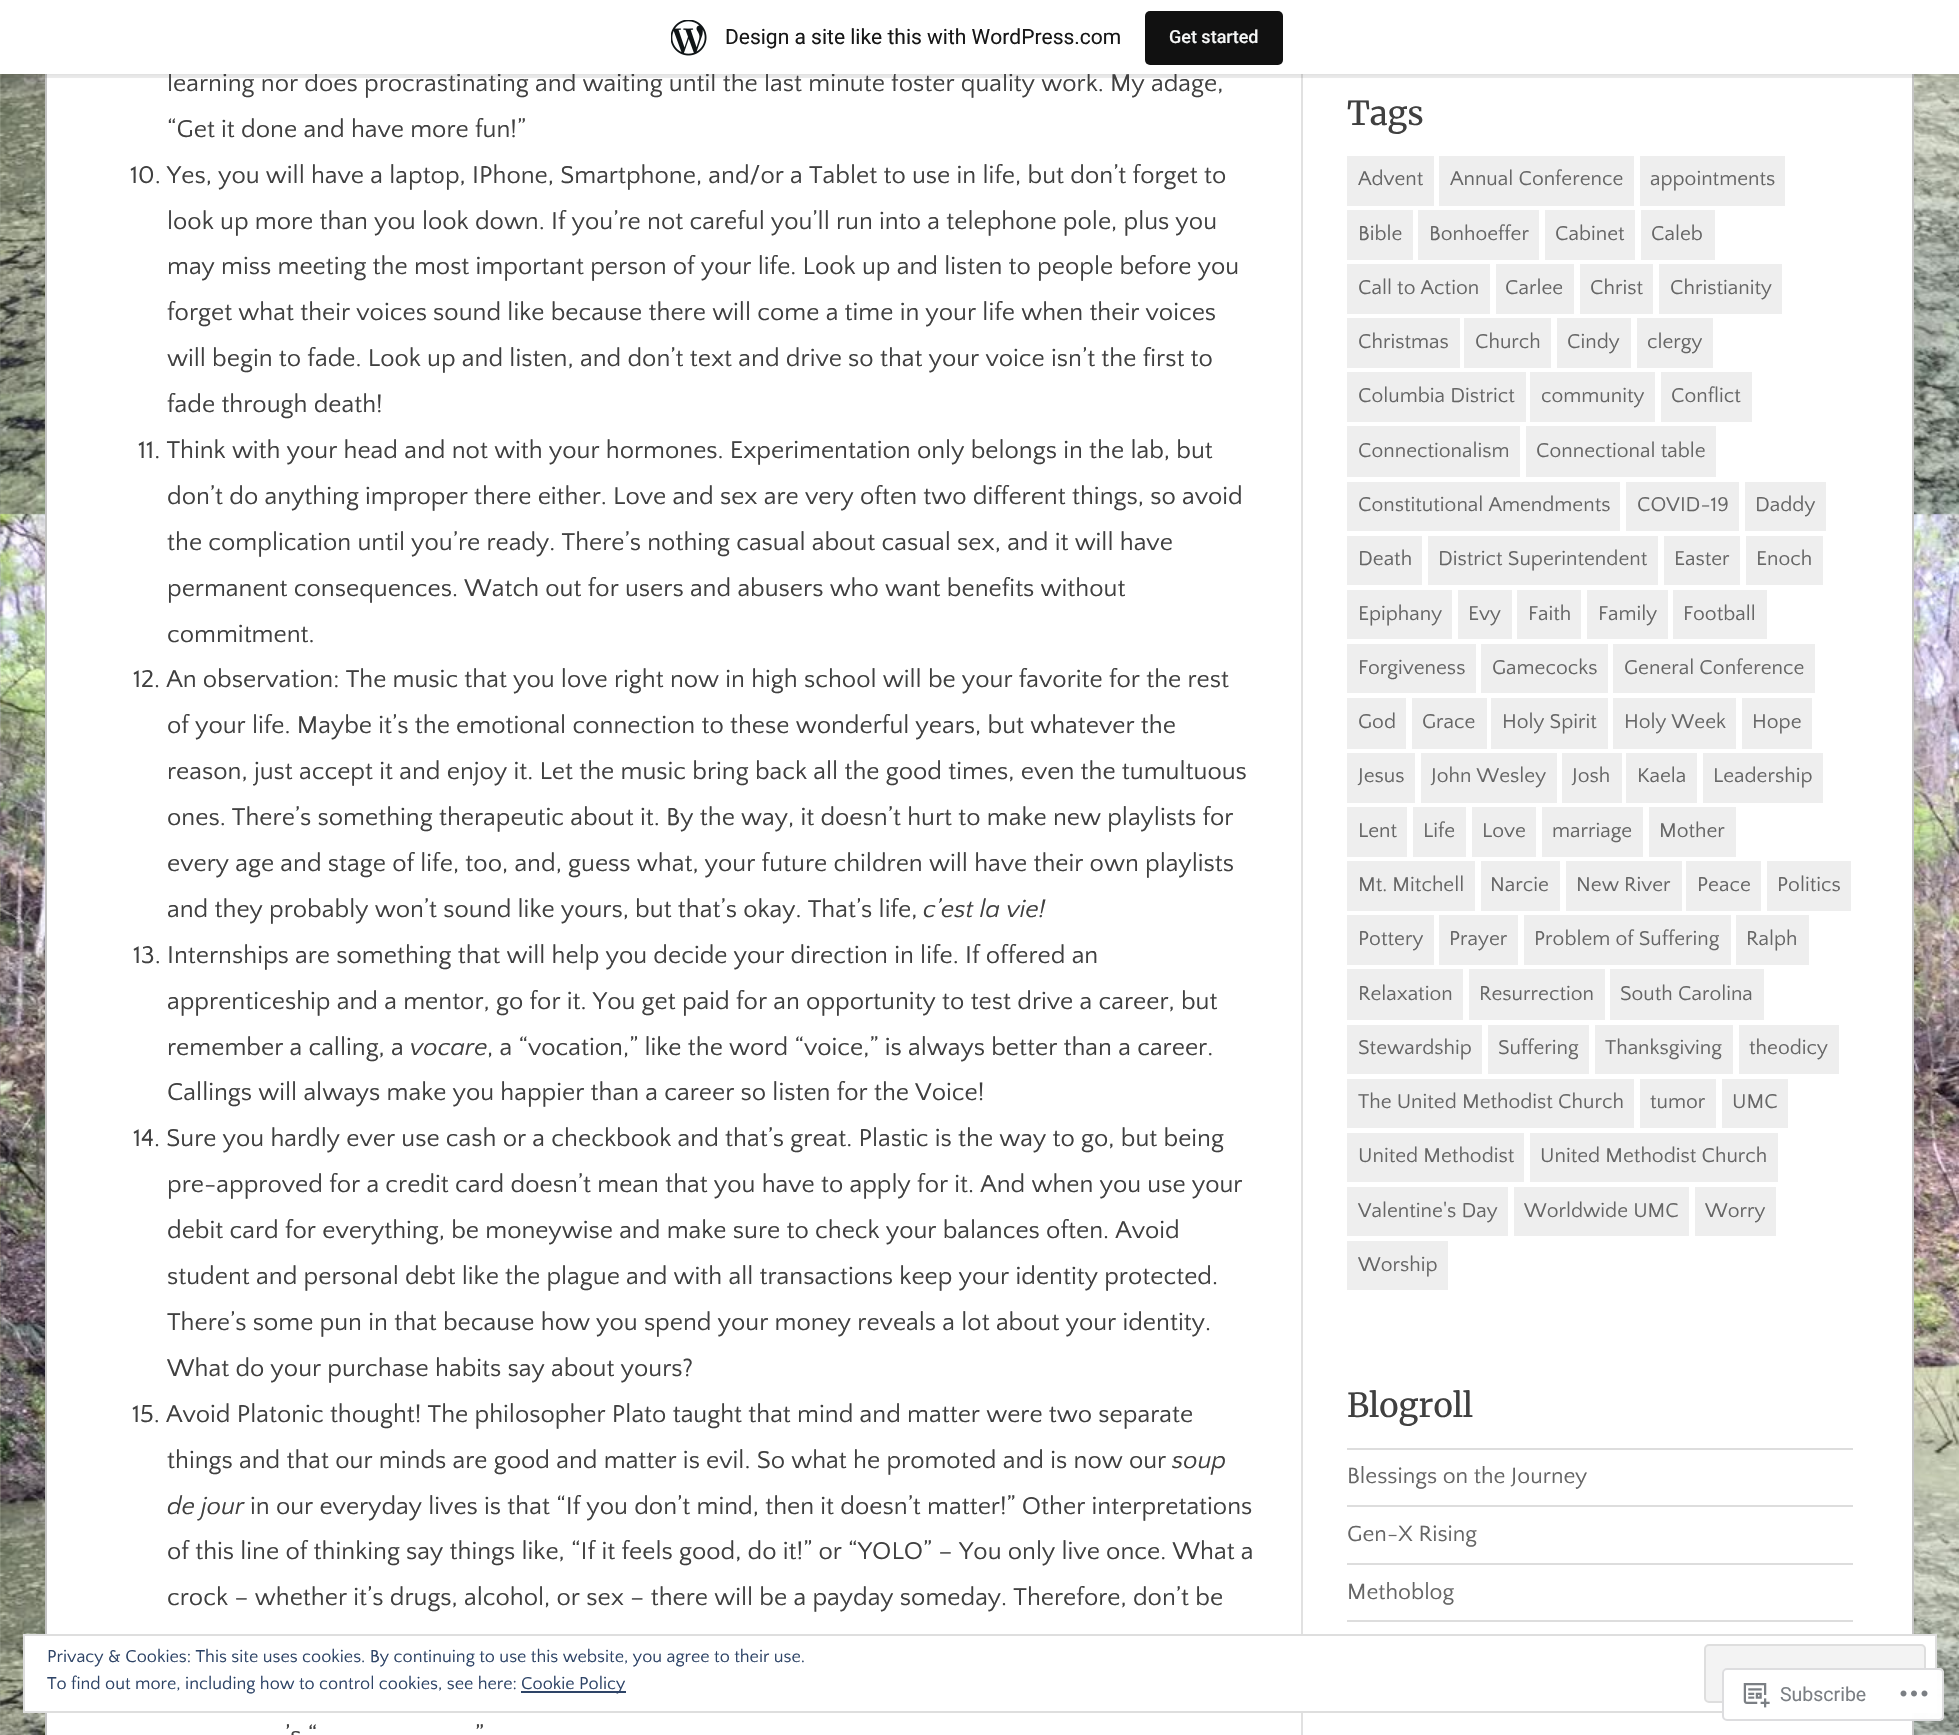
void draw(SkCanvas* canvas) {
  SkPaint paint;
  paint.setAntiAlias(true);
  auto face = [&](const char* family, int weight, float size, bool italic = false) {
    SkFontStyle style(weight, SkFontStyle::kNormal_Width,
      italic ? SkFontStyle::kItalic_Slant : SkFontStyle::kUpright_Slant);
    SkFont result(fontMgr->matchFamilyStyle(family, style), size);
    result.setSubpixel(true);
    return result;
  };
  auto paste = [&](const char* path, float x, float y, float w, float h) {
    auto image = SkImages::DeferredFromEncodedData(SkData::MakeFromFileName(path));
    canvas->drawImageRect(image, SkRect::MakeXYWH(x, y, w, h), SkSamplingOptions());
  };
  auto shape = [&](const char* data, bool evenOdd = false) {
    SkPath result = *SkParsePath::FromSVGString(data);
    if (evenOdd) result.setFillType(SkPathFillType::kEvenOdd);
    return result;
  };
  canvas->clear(0xffffffff);
  paste("img/1.png", 0, 74, 1959, 1661);
  paint.setColor(0xffffffff);
  canvas->drawRect(SkRect::MakeXYWH(47, 74, 1865, 1661), paint);
  paint.setStroke(true);
  paint.setStrokeWidth(2);
  paint.setColor(0xffc4c4c4);
  canvas->drawRect(SkRect::MakeXYWH(46, -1, 1867, 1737), paint);
  paint.setStroke(false);
  paint.setColor(0xffe1e1e1);
  canvas->drawRect(SkRect::MakeXYWH(1301, 74, 2, 1661), paint);
  paint.setColor(0x0d000000);
  paint.setMaskFilter(SkMaskFilter::MakeBlur(kNormal_SkBlurStyle, 1.5f));
  canvas->drawRect(SkRect::MakeXYWH(0, 2, 1959, 73), paint);
  paint.setMaskFilter(nullptr);
  paint.setColor(0x14000000);
  canvas->drawPath(shape("M2 74V78H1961V5H1959V74Z"), paint);
  {
    const struct { float x, y, w, h; SkColor color; } items[] = {
      {1347, 156, 87, 50, 0xffeeeeee},
      {1439, 156, 195, 50, 0xffeeeeee},
      {1640, 156, 145, 50, 0xffeeeeee},
      {1347, 210, 66, 50, 0xffeeeeee},
      {1418, 210, 121, 50, 0xffeeeeee},
      {1545, 210, 90, 50, 0xffeeeeee},
      {1641, 210, 74, 50, 0xffeeeeee},
      {1347, 264, 143, 50, 0xffeeeeee},
      {1496, 264, 78, 50, 0xffeeeeee},
      {1580, 264, 73, 50, 0xffeeeeee},
      {1659, 264, 123, 50, 0xffeeeeee},
      {1347, 318, 113, 50, 0xffeeeeee},
      {1464, 318, 87, 50, 0xffeeeeee},
      {1557, 318, 74, 50, 0xffeeeeee},
      {1637, 318, 76, 50, 0xffeeeeee},
      {1347, 372, 179, 50, 0xffeeeeee},
      {1530, 372, 125, 50, 0xffeeeeee},
      {1661, 372, 91, 50, 0xffeeeeee},
      {1347, 426, 173, 51, 0xffeeeeee},
      {1526, 426, 190, 51, 0xffeeeeee},
      {1347, 482, 273, 49, 0xffeeeeee},
      {1626, 482, 113, 49, 0xffeeeeee},
      {1745, 482, 81, 49, 0xffeeeeee},
      {1347, 536, 75, 49, 0xffeeeeee},
      {1428, 536, 230, 49, 0xffeeeeee},
      {1664, 536, 76, 49, 0xffeeeeee},
      {1746, 536, 77, 49, 0xffeeeeee},
      {1347, 590, 105, 49, 0xffeeeeee},
      {1458, 590, 54, 49, 0xffeeeeee},
      {1517, 590, 64, 49, 0xffeeeeee},
      {1587, 590, 81, 49, 0xffeeeeee},
      {1673, 590, 94, 49, 0xffeeeeee},
      {1347, 644, 129, 49, 0xffeeeeee},
      {1481, 644, 127, 49, 0xffeeeeee},
      {1613, 644, 202, 49, 0xffeeeeee},
      {1347, 698, 59, 51, 0xffeeeeee},
      {1412, 698, 75, 51, 0xffeeeeee},
      {1491, 698, 117, 51, 0xffeeeeee},
      {1613, 698, 123, 51, 0xffeeeeee},
      {1742, 698, 70, 51, 0xffeeeeee},
      {1347, 753, 68, 50, 0xffeeeeee},
      {1421, 753, 136, 50, 0xffeeeeee},
      {1562, 753, 60, 50, 0xffeeeeee},
      {1626, 753, 71, 50, 0xffeeeeee},
      {1703, 753, 120, 50, 0xffeeeeee},
      {1347, 807, 60, 50, 0xffeeeeee},
      {1413, 807, 53, 50, 0xffeeeeee},
      {1472, 807, 64, 50, 0xffeeeeee},
      {1542, 807, 101, 50, 0xffeeeeee},
      {1649, 807, 87, 50, 0xffeeeeee},
      {1347, 861, 128, 50, 0xffeeeeee},
      {1481, 861, 79, 50, 0xffeeeeee},
      {1566, 861, 116, 50, 0xffeeeeee},
      {1686, 861, 75, 50, 0xffeeeeee},
      {1767, 861, 84, 50, 0xffeeeeee},
      {1347, 915, 87, 50, 0xffeeeeee},
      {1439, 915, 79, 50, 0xffeeeeee},
      {1524, 915, 207, 50, 0xffeeeeee},
      {1736, 915, 73, 50, 0xffeeeeee},
      {1347, 969, 116, 51, 0xffeeeeee},
      {1469, 969, 136, 51, 0xffeeeeee},
      {1610, 969, 154, 51, 0xffeeeeee},
      {1347, 1025, 135, 49, 0xffeeeeee},
      {1488, 1025, 101, 49, 0xffeeeeee},
      {1595, 1025, 138, 49, 0xffeeeeee},
      {1739, 1025, 100, 49, 0xffeeeeee},
      {1347, 1079, 287, 49, 0xffeeeeee},
      {1640, 1079, 76, 49, 0xffeeeeee},
      {1722, 1079, 66, 49, 0xffeeeeee},
      {1347, 1133, 177, 49, 0xffeeeeee},
      {1530, 1133, 248, 49, 0xffeeeeee},
      {1347, 1187, 161, 49, 0xffeeeeee},
      {1514, 1187, 175, 49, 0xffeeeeee},
      {1695, 1187, 81, 49, 0xffeeeeee},
      {1347, 1241, 101, 49, 0xffeeeeee},
      {1347, 1448, 506, 2, 0xffdddddd},
      {1347, 1505, 506, 2, 0xffdddddd},
      {1347, 1563, 506, 2, 0xffdddddd},
      {1347, 1620, 506, 2, 0xffdddddd},
    };
    for (auto [x, y, w, h, color] : items) {
      paint.setColor(color);
      canvas->drawRect(SkRect::MakeXYWH(x, y, w, h), paint);
    }
  }
  paint.setColor(0xffffffff);
  canvas->drawRect(SkRect::MakeXYWH(24, 1635, 1912, 77), paint);
  paint.setStroke(true);
  paint.setColor(0xffdedede);
  canvas->drawRect(SkRect::MakeXYWH(24, 1635, 1912, 77), paint);
  paint.setStroke(false);
  paint.setColor(0xfff3f3f3);
  canvas->drawRoundRect(SkRect::MakeXYWH(1705, 1645, 220, 57), 4, 4, paint);
  paint.setStroke(true);
  paint.setColor(0xffdedede);
  canvas->drawRoundRect(SkRect::MakeXYWH(1705, 1645, 220, 57), 4, 4, paint);
  paint.setStroke(false);
  paint.setColor(0xff2e4467);
  canvas->drawRect(SkRect::MakeXYWH(521, 1691, 105, 2), paint);
  paint.setColor(0xfaffffff);
  canvas->drawRoundRect(SkRect::MakeXYWH(1722, 1668, 222, 53), 5, 5, paint);
  paint.setStroke(true);
  paint.setColor(0xfadcdcde);
  canvas->drawRoundRect(SkRect::MakeXYWH(1723, 1669, 220, 51), 4, 4, paint);
  paste("img/3.png", 1743, 1683, 27, 25);
  paste("img/4.png", 1900, 1690, 28, 7);
  auto f0 = face("Quattrocento Sans", 400, 25.5f);
  paint.setStroke(false);
  paint.setColor(0xff404040);
  canvas->drawString("learning nor does procrastinating and waiting until the last minute foster quality work. My adage,", 167, 91, f0, paint);
  paint.setColor(0xffffffff);
  canvas->drawRect(SkRect::MakeXYWH(0, 0, 1959, 74), paint);
  paste("img/2.png", 671, 20, 36, 36);
  auto f1 = face("Roboto", 400, 21);
  paint.setColor(0xff171717);
  canvas->drawString("Design a site like this with WordPress.com", 725, 44, f1, paint);
  paint.setColor(0xff111111);
  canvas->drawRoundRect(SkRect::MakeXYWH(1145, 11, 138, 54), 5, 5, paint);
  auto f2 = face("Roboto", 500, 18);
  paint.setColor(0xfff6f7f7);
  canvas->drawString("Get started", 1169, 43, f2, paint);
  paint.setColor(0xff404040);
  {
    const struct { const char* s; float x, y; } items[] = {
      {"“Get it done and have more fun!”", 167, 137},
      {"10. Yes, you will have a laptop, IPhone, Smartphone, and/or a Tablet to use in life, but don’t forget to", 130, 183},
      {"look up more than you look down. If you’re not careful you’ll run into a telephone pole, plus you", 167, 229},
      {"may miss meeting the most important person of your life. Look up and listen to people before you", 167, 274},
      {"forget what their voices sound like because there will come a time in your life when their voices", 167, 320},
      {"will begin to fade. Look up and listen, and don’t text and drive so that your voice isn’t the first to", 167, 366},
      {"fade through death!", 167, 412},
      {"11. Think with your head and not with your hormones. Experimentation only belongs in the lab, but", 138, 458},
      {"don’t do anything improper there either. Love and sex are very often two different things, so avoid", 167, 504},
      {"the complication until you’re ready. There’s nothing casual about casual sex, and it will have", 167, 550},
      {"permanent consequences. Watch out for users and abusers who want benefits without", 167, 596},
      {"commitment.", 167, 642},
      {"12. An observation: The music that you love right now in high school will be your favorite for the rest", 133, 687},
      {"of your life. Maybe it’s the emotional connection to these wonderful years, but whatever the", 167, 733},
      {"reason, just accept it and enjoy it. Let the music bring back all the good times, even the tumultuous", 167, 779},
      {"ones. There’s something therapeutic about it. By the way, it doesn’t hurt to make new playlists for", 167, 825},
      {"every age and stage of life, too, and, guess what, your future children will have their own playlists", 167, 871},
      {"and they probably won’t sound like yours, but that’s okay. That’s life,", 167, 917},
    };
    for (auto [s, x, y] : items) {
      canvas->drawString(s, x, y, f0, paint);
    }
  }
  auto f3 = face("Quattrocento Sans", 400, 25.5f, true);
  canvas->drawString("c’est la vie!", 923, 917, f3, paint);
  {
    const struct { const char* s; float x, y; } items[] = {
      {"13. Internships are something that will help you decide your direction in life. If offered an", 133, 963},
      {"apprenticeship and a mentor, go for it. You get paid for an opportunity to test drive a career, but", 167, 1009},
      {"remember a calling, a", 167, 1055},
    };
    for (auto [s, x, y] : items) {
      canvas->drawString(s, x, y, f0, paint);
    }
  }
  canvas->drawString("vocare", 410, 1055, f3, paint);
  {
    const struct { const char* s; float x, y; } items[] = {
      {", a “vocation,” like the word “voice,” is always better than a career.", 487, 1055},
      {"Callings will always make you happier than a career so listen for the Voice!", 167, 1100},
      {"14. Sure you hardly ever use cash or a checkbook and that’s great. Plastic is the way to go, but being", 133, 1146},
      {"pre-approved for a credit card doesn’t mean that you have to apply for it. And when you use your", 167, 1192},
      {"debit card for everything, be moneywise and make sure to check your balances often. Avoid", 167, 1238},
      {"student and personal debt like the plague and with all transactions keep your identity protected.", 167, 1284},
      {"There’s some pun in that because how you spend your money reveals a lot about your identity.", 167, 1330},
      {"What do your purchase habits say about yours?", 167, 1376},
      {"15. Avoid Platonic thought! The philosopher Plato taught that mind and matter were two separate", 132, 1422},
      {"things and that our minds are good and matter is evil. So what he promoted and is now our", 167, 1468},
    };
    for (auto [s, x, y] : items) {
      canvas->drawString(s, x, y, f0, paint);
    }
  }
  canvas->drawString("soup", 1172, 1468, f3, paint);
  canvas->drawString("de jour", 167, 1514, f3, paint);
  {
    const struct { const char* s; float x, y; } items[] = {
      {"in our everyday lives is that “If you don’t mind, then it doesn’t matter!” Other interpretations", 250, 1514},
      {"of this line of thinking say things like, “If it feels good, do it!” or “YOLO” – You only live once. What a", 167, 1559},
      {"crock – whether it’s drugs, alcohol, or sex – there will be a payday someday. Therefore, don’t be", 167, 1605},
      {"’s “", 285, 1743},
      {"”", 475, 1743},
    };
    for (auto [s, x, y] : items) {
      canvas->drawString(s, x, y, f0, paint);
    }
  }
  auto f4 = face("Merriweather", 300, 33);
  canvas->drawString("Tags", 1347, 125, f4, paint);
  auto f5 = face("Quattrocento Sans", 400, 21);
  paint.setColor(0xff666666);
  {
    const struct { const char* s; float x, y; } items[] = {
      {"Advent", 1358, 185},
      {"Annual Conference", 1450, 185},
      {"appointments", 1650, 185},
      {"Bible", 1358, 240},
      {"Bonhoeffer", 1429, 240},
      {"Cabinet", 1555, 240},
      {"Caleb", 1651, 240},
      {"Call to Action", 1358, 294},
      {"Carlee", 1505, 294},
      {"Christ", 1590, 294},
      {"Christianity", 1670, 294},
      {"Christmas", 1358, 348},
      {"Church", 1475, 348},
      {"Cindy", 1567, 348},
      {"clergy", 1647, 348},
      {"Columbia District", 1358, 402},
      {"community", 1541, 402},
      {"Conflict", 1671, 402},
      {"Connectionalism", 1358, 457},
      {"Connectional table", 1536, 457},
      {"Constitutional Amendments", 1358, 511},
      {"COVID-19", 1637, 511},
      {"Daddy", 1755, 511},
      {"Death", 1358, 565},
      {"District Superintendent", 1438, 565},
      {"Easter", 1674, 565},
      {"Enoch", 1756, 565},
      {"Epiphany", 1358, 620},
      {"Evy", 1468, 620},
      {"Faith", 1528, 620},
      {"Family", 1598, 620},
      {"Football", 1683, 620},
      {"Forgiveness", 1358, 674},
      {"Gamecocks", 1492, 674},
      {"General Conference", 1624, 674},
      {"God", 1358, 728},
      {"Grace", 1422, 728},
      {"Holy Spirit", 1502, 728},
      {"Holy Week", 1624, 728},
      {"Hope", 1752, 728},
      {"Jesus", 1358, 782},
      {"John Wesley", 1431, 782},
      {"Josh", 1572, 782},
      {"Kaela", 1637, 782},
      {"Leadership", 1713, 782},
      {"Lent", 1358, 837},
      {"Life", 1423, 837},
      {"Love", 1482, 837},
      {"marriage", 1552, 837},
      {"Mother", 1659, 837},
      {"Mt. Mitchell", 1358, 891},
      {"Narcie", 1490, 891},
      {"New River", 1576, 891},
      {"Peace", 1697, 891},
      {"Politics", 1777, 891},
      {"Pottery", 1358, 945},
      {"Prayer", 1449, 945},
      {"Problem of Suffering", 1534, 945},
      {"Ralph", 1746, 945},
      {"Relaxation", 1358, 1000},
      {"Resurrection", 1479, 1000},
      {"South Carolina", 1620, 1000},
      {"Stewardship", 1358, 1054},
      {"Suffering", 1498, 1054},
      {"Thanksgiving", 1605, 1054},
      {"theodicy", 1749, 1054},
      {"The United Methodist Church", 1358, 1108},
      {"tumor", 1650, 1108},
      {"UMC", 1732, 1108},
      {"United Methodist", 1358, 1162},
      {"United Methodist Church", 1540, 1162},
      {"Valentine's Day", 1358, 1217},
      {"Worldwide UMC", 1524, 1217},
      {"Worry", 1705, 1217},
      {"Worship", 1358, 1271},
    };
    for (auto [s, x, y] : items) {
      canvas->drawString(s, x, y, f5, paint);
    }
  }
  paint.setColor(0xff404040);
  canvas->drawString("Blogroll", 1347, 1417, f4, paint);
  auto f6 = face("Quattrocento Sans", 400, 23);
  paint.setColor(0xff666666);
  {
    const struct { const char* s; float x, y; } items[] = {
      {"Blessings on the Journey", 1347, 1483},
      {"Gen-X Rising", 1347, 1541},
      {"Methoblog", 1347, 1599},
    };
    for (auto [s, x, y] : items) {
      canvas->drawString(s, x, y, f6, paint);
    }
  }
  auto f7 = face("Quattrocento Sans", 400, 18);
  paint.setColor(0xff2e4467);
  {
    const struct { const char* s; float x, y; } items[] = {
      {"Privacy & Cookies: This site uses cookies. By continuing to use this website, you agree to their use.", 47, 1662},
      {"To find out more, including how to control cookies, see here:", 47, 1689},
      {"Cookie Policy", 521, 1689},
    };
    for (auto [s, x, y] : items) {
      canvas->drawString(s, x, y, f7, paint);
    }
  }
  auto f8 = face("Roboto", 400, 19.5f);
  paint.setColor(0xff7b7f84);
  canvas->drawString("Subscribe", 1780, 1701, f8, paint);
}
